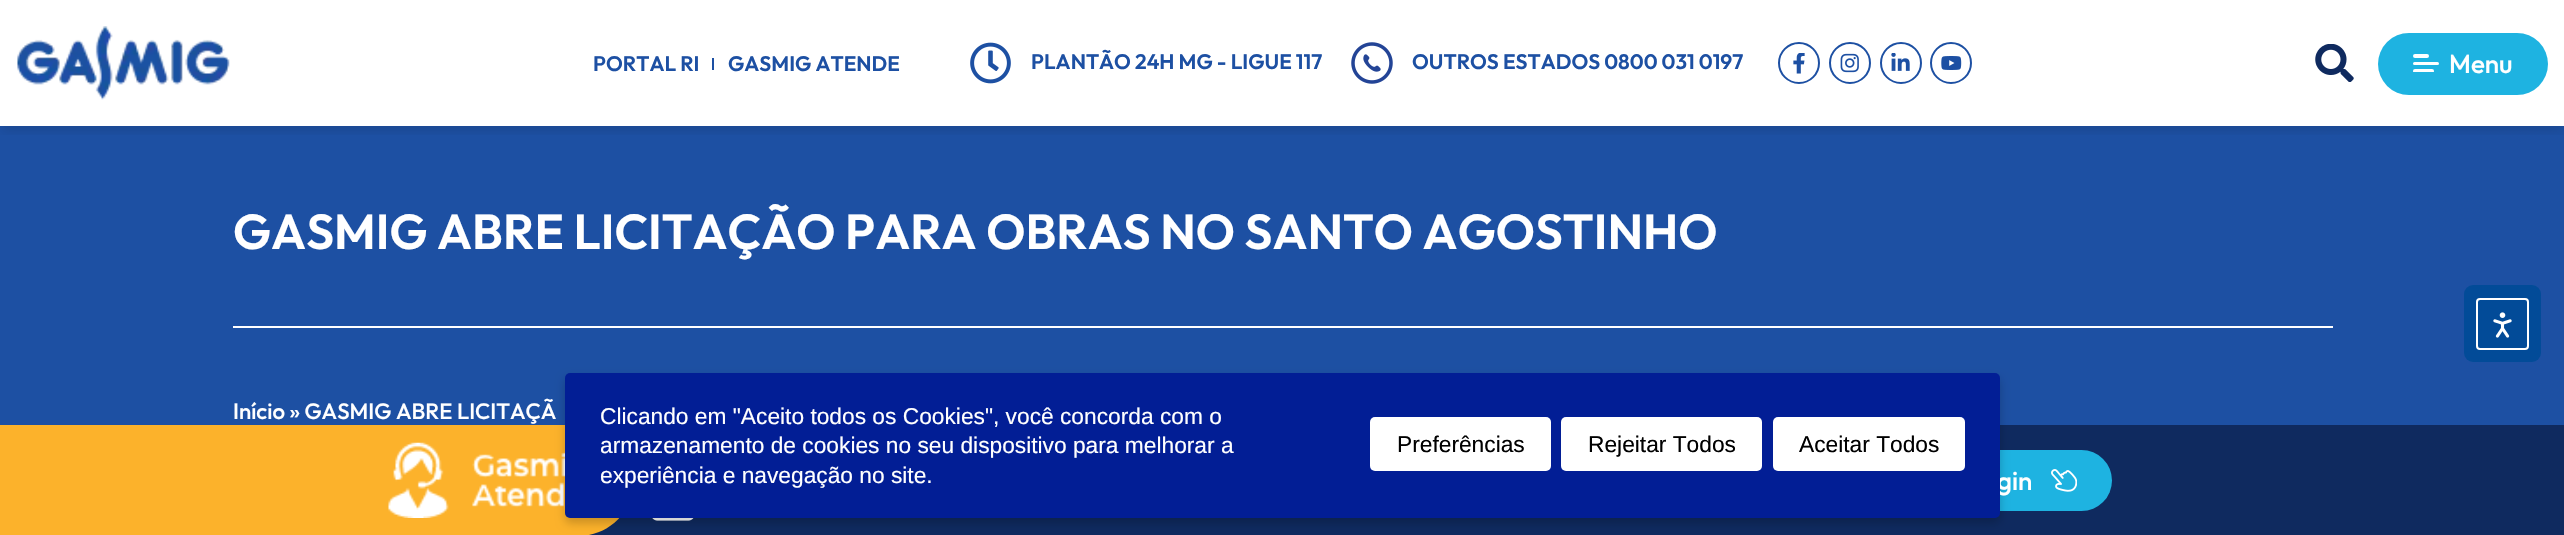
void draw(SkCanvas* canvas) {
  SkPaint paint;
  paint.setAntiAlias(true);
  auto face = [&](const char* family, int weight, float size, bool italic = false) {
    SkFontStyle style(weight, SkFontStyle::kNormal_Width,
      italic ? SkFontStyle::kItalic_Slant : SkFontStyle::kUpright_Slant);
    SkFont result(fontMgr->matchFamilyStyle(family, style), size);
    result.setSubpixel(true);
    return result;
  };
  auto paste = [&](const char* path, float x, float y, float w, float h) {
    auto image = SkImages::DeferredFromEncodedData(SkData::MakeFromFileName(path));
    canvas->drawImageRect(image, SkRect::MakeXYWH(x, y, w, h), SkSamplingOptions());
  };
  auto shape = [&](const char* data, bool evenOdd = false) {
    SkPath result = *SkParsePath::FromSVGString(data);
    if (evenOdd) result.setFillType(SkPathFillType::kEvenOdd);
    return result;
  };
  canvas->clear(0xffffffff);
  paint.setColor(0xff1d50a3);
  canvas->drawRect(SkRect::MakeXYWH(0, 126, 2564, 299), paint);
  canvas->save();
  canvas->clipRect(SkRect::MakeXYWH(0, 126, 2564, 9));
  paint.setColor(0x1a000000);
  paint.setMaskFilter(SkMaskFilter::MakeBlur(kNormal_SkBlurStyle, 5));
  canvas->drawRect(SkRect::MakeXYWH(2, 9, 2562, 122), paint);
  paint.setMaskFilter(nullptr);
  canvas->restore();
  paste("img/1.png", 17, 26, 213, 74);
  paint.setColor(0xff1d50a3);
  canvas->drawRect(SkRect::MakeXYWH(712, 58, 2, 12), paint);
  paste("img/2.png", 970, 42, 41, 42);
  paste("img/3.png", 1351, 42, 42, 42);
  paint.setStroke(true);
  paint.setStrokeWidth(2);
  canvas->drawCircle(1799, 63, 20, paint);
  paste("img/4.png", 1793, 53, 12, 21);
  canvas->drawCircle(1850, 63, 20, paint);
  paste("img/5.png", 1840, 53, 19, 20);
  canvas->drawCircle(1901, 63, 20, paint);
  paste("img/6.png", 1891, 53, 19, 18);
  canvas->drawCircle(1951, 63, 20, paint);
  paste("img/7.png", 1941, 56, 21, 14);
  paste("img/8.png", 2315, 44, 39, 38);
  paint.setStroke(false);
  paint.setColor(0xff1eb3e1);
  canvas->drawRoundRect(SkRect::MakeXYWH(2378, 33, 170, 62), 31, 31, paint);
  paint.setColor(0xffffffff);
  canvas->drawRoundRect(SkRect::MakeXYWH(2413, 54, 16, 4), 2, 2, paint);
  canvas->drawRoundRect(SkRect::MakeXYWH(2413, 62, 26, 3), 1.5f, 1.5f, paint);
  canvas->save();
  canvas->clipRect(SkRect::MakeXYWH(2413, 54, 27, 18));
  canvas->drawRoundRect(SkRect::MakeXYWH(2413, 69, 21, 4), 2, 2, paint);
  canvas->restore();
  canvas->drawRect(SkRect::MakeXYWH(233, 326, 2100, 2), paint);
  paint.setColor(0xff0f2a5f);
  canvas->drawRect(SkRect::MakeXYWH(589, 425, 1975, 110), paint);
  paint.setColor(0xfffcb22b);
  canvas->drawPath(shape("M0 425H578.5C609 425 634 450 634 480.5C634 511 609 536 578.5 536H0Z"), paint);
  paste("img/9.png", 388, 442, 177, 76);
  paint.setColor(0xff1eb3e1);
  canvas->drawRoundRect(SkRect::MakeXYWH(1934, 450, 178, 61), 30.5f, 30.5f, paint);
  paste("img/10.png", 2051, 469, 26, 23);
  paste("img/11.png", 652, 518, 42, 3);
  paint.setColor(0xff024b98);
  canvas->drawRoundRect(SkRect::MakeXYWH(2464, 285, 77, 77), 9, 9, paint);
  paint.setStroke(true);
  paint.setColor(0xffffffff);
  canvas->drawRoundRect(SkRect::MakeXYWH(2477, 299, 51, 50), 3, 3, paint);
  paste("img/12.png", 2493, 312, 19, 26);
  paint.setStroke(false);
  paint.setColor(0x33000000);
  paint.setMaskFilter(SkMaskFilter::MakeBlur(kNormal_SkBlurStyle, 5));
  canvas->drawRoundRect(SkRect::MakeXYWH(565, 378, 1435, 145), 5, 5, paint);
  paint.setMaskFilter(nullptr);
  auto f0 = face("Outfit", 600, 21);
  paint.setColor(0xff1d50a3);
  {
    const struct { const char* s; float x, y; } items[] = {
      {"PORTAL RI", 593, 71},
      {"GASMIG ATENDE", 728, 71},
      {"PLANTÃO 24H MG - LIGUE 117", 1031, 69},
      {"OUTROS ESTADOS 0800 031 0197", 1412, 69},
    };
    for (auto [s, x, y] : items) {
      canvas->drawString(s, x, y, f0, paint);
    }
  }
  auto f1 = face("Outfit", 500, 26);
  paint.setColor(0xffffffff);
  canvas->drawString("Menu", 2449, 73, f1, paint);
  auto f2 = face("Outfit", 600, 49);
  canvas->drawString("GASMIG ABRE LICITAÇÃO PARA OBRAS NO SANTO AGOSTINHO", 233, 249, f2, paint);
  auto f3 = face("Outfit", 500, 22.25f);
  canvas->drawString("Início » GASMIG ABRE LICITAÇÃ", 233, 419, f3, paint);
  canvas->drawString("gin", 1997, 490, f1, paint);
  paint.setColor(0xff021e95);
  canvas->drawRoundRect(SkRect::MakeXYWH(565, 373, 1435, 145), 5, 5, paint);
  auto f4 = face("Liberation Sans", 400, 22.75f);
  paint.setColor(0xffffffff);
  {
    const struct { const char* s; float x, y; } items[] = {
      {"Clicando em \"Aceito todos os Cookies\", você concorda com o", 600, 424},
      {"armazenamento de cookies no seu dispositivo para melhorar a", 600, 453},
      {"experiência e navegação no site.", 600, 483},
    };
    for (auto [s, x, y] : items) {
      canvas->drawString(s, x, y, f4, paint);
    }
  }
  canvas->drawRoundRect(SkRect::MakeXYWH(1370, 417, 181, 54), 5, 5, paint);
  paint.setColor(0xff000000);
  canvas->drawString("Preferências", 1397, 452, f4, paint);
  paint.setColor(0xffffffff);
  canvas->drawRoundRect(SkRect::MakeXYWH(1561, 417, 201, 54), 5, 5, paint);
  paint.setColor(0xff000000);
  canvas->drawString("Rejeitar Todos", 1588, 452, f4, paint);
  paint.setColor(0xffffffff);
  canvas->drawRoundRect(SkRect::MakeXYWH(1773, 417, 192, 54), 5, 5, paint);
  paint.setColor(0xff000000);
  canvas->drawString("Aceitar Todos", 1799, 452, f4, paint);
}
